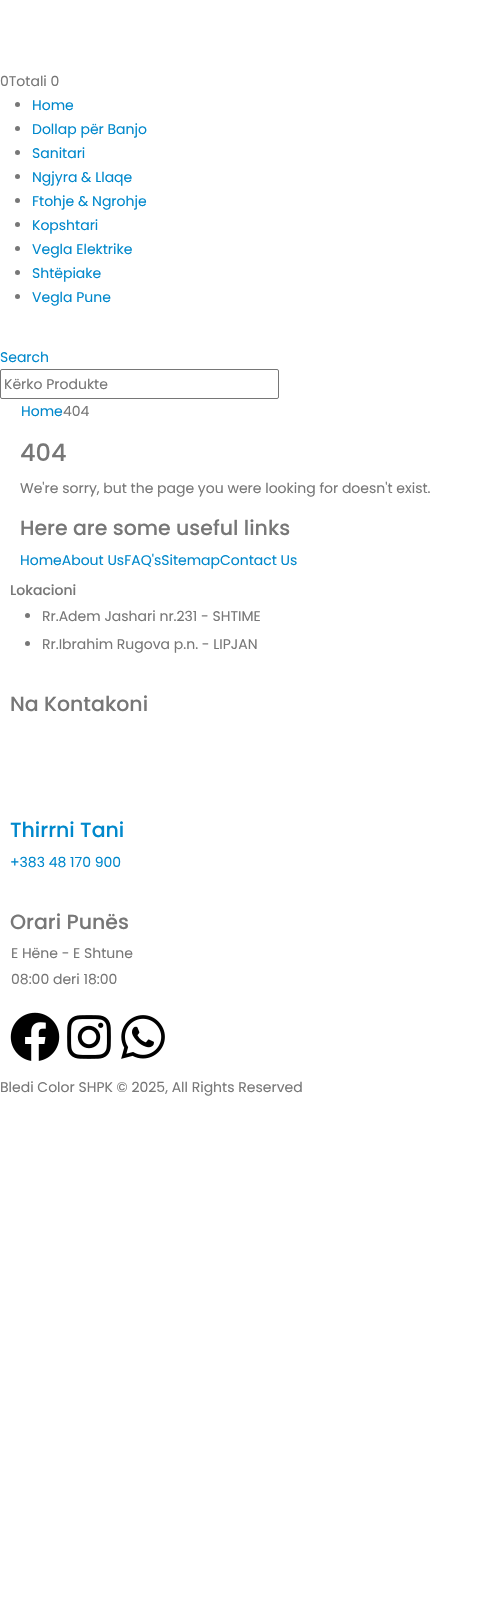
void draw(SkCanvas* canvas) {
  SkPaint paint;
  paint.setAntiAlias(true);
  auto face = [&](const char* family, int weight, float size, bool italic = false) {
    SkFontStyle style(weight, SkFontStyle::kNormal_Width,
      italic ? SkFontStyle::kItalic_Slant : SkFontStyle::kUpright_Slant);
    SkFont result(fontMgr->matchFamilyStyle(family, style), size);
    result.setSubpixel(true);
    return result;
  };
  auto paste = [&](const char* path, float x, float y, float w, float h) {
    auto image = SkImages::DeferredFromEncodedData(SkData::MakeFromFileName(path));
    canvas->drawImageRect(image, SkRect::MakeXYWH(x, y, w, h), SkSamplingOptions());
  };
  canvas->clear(0xffffffff);
  paint.setColor(0xff777777);
  canvas->drawCircle(17.5f, 104.5f, 2.5f, paint);
  canvas->drawCircle(17.5f, 128.5f, 2.5f, paint);
  canvas->drawCircle(17.5f, 152.5f, 2.5f, paint);
  canvas->drawCircle(17.5f, 176.5f, 2.5f, paint);
  canvas->drawCircle(17.5f, 200.5f, 2.5f, paint);
  canvas->drawCircle(17.5f, 224.5f, 2.5f, paint);
  canvas->drawCircle(17.5f, 248.5f, 2.5f, paint);
  canvas->drawCircle(17.5f, 272.5f, 2.5f, paint);
  canvas->drawCircle(17.5f, 296.5f, 2.5f, paint);
  paint.setStroke(true);
  paint.setStrokeWidth(1);
  paint.setColor(0xff767676);
  canvas->drawRoundRect(SkRect::MakeXYWH(0.5f, 369.5f, 278, 29), 1.5f, 1.5f, paint);
  paint.setStroke(false);
  paint.setColor(0xff777777);
  canvas->drawCircle(27.5f, 615.5f, 2.5f, paint);
  canvas->drawCircle(27.5f, 643.5f, 2.5f, paint);
  paste("img/1.png", 10, 1012, 50, 49);
  paste("img/2.png", 67, 1015, 44, 44);
  paste("img/3.png", 121, 1015, 44, 44);
  auto f0 = face("Poppins", 400, 14);
  canvas->drawString("0Totali 0", 0, 86, f0, paint);
  paint.setColor(0xff0088cc);
  {
    const struct { const char* s; float x, y; } items[] = {
      {"Home", 32, 110},
      {"Dollap për Banjo", 32, 134},
      {"Sanitari", 32, 158},
      {"Ngjyra & Llaqe", 32, 182},
      {"Ftohje & Ngrohje", 32, 206},
      {"Kopshtari", 32, 230},
      {"Vegla Elektrike", 32, 254},
      {"Shtëpiake", 32, 278},
      {"Vegla Pune", 32, 302},
      {"Search", 0, 362},
    };
    for (auto [s, x, y] : items) {
      canvas->drawString(s, x, y, f0, paint);
    }
  }
  paint.setColor(0xff777777);
  canvas->drawString("Kërko Produkte", 4, 389, f0, paint);
  paint.setColor(0xff0088cc);
  canvas->drawString("Home", 21, 416, f0, paint);
  paint.setColor(0xff777777);
  canvas->drawString("404", 63, 416, f0, paint);
  auto f1 = face("Poppins", 500, 24);
  canvas->drawString("404", 20, 461, f1, paint);
  canvas->drawString("We're sorry, but the page you were looking for doesn't exist.", 20, 493, f0, paint);
  auto f2 = face("Poppins", 500, 20.5f);
  canvas->drawString("Here are some useful links", 20, 535, f2, paint);
  paint.setColor(0xff0088cc);
  canvas->drawString("HomeAbout UsFAQ'sSitemapContact Us", 20, 565, f0, paint);
  auto f3 = face("Poppins", 500, 14);
  paint.setColor(0xff777777);
  canvas->drawString("Lokacioni", 10, 595, f3, paint);
  canvas->drawString("Rr.Adem Jashari nr.231 - SHTIME", 42, 621, f0, paint);
  canvas->drawString("Rr.Ibrahim Rugova p.n. - LIPJAN", 42, 649, f0, paint);
  canvas->drawString("Na Kontakoni", 10, 711, f2, paint);
  paint.setColor(0xff0088cc);
  canvas->drawString("Thirrni Tani", 10, 837, f2, paint);
  canvas->drawString("+383 48 170 900", 10, 867, f0, paint);
  paint.setColor(0xff777777);
  canvas->drawString("Orari Punës", 10, 929, f2, paint);
  {
    const struct { const char* s; float x, y; } items[] = {
      {"E Hëne - E Shtune", 11, 958},
      {"08:00 deri 18:00", 11, 984},
      {"Bledi Color SHPK © 2025, All Rights Reserved", 0, 1092},
    };
    for (auto [s, x, y] : items) {
      canvas->drawString(s, x, y, f0, paint);
    }
  }
}
